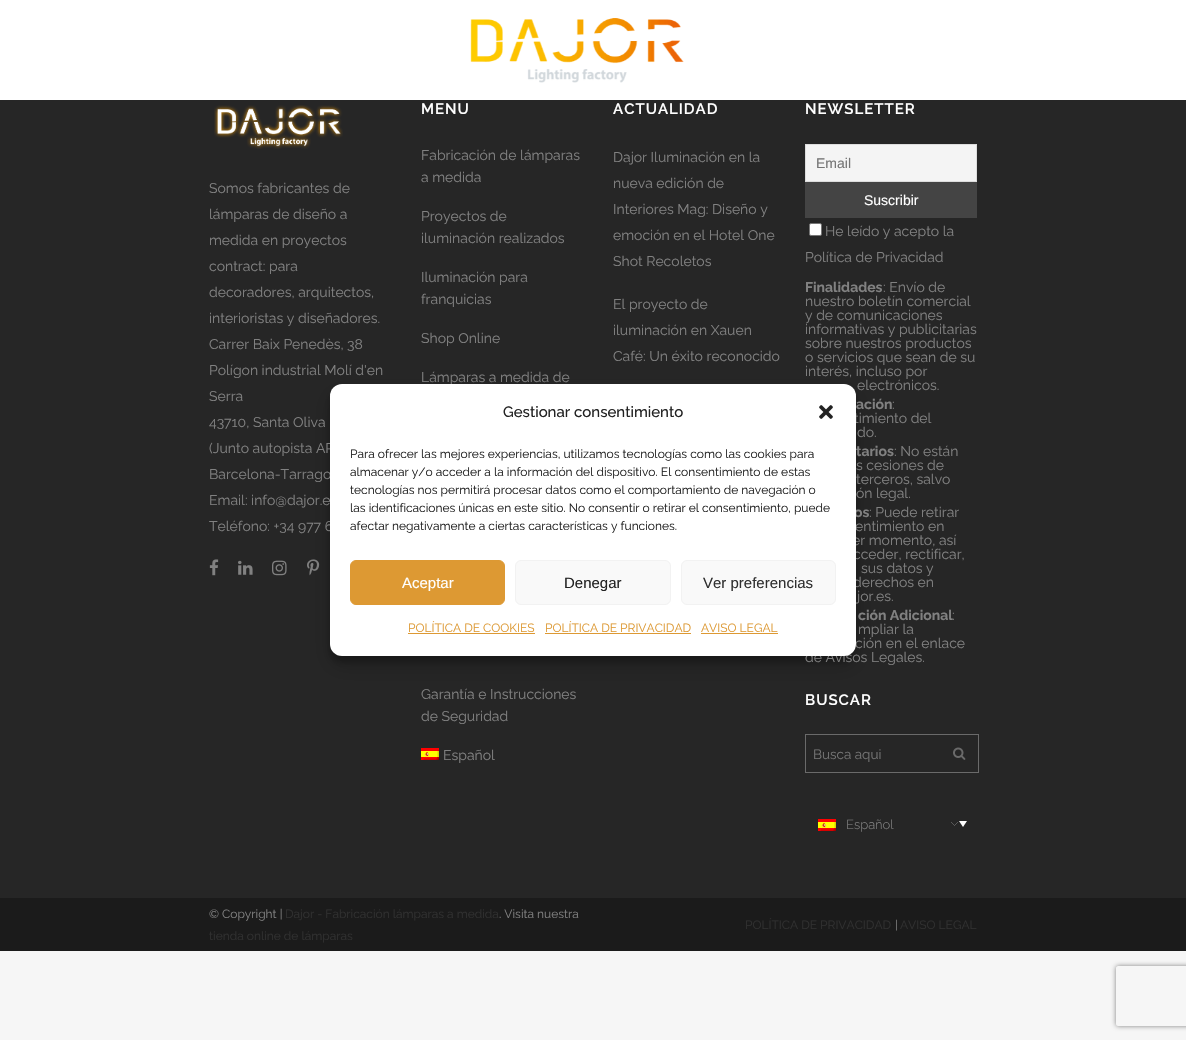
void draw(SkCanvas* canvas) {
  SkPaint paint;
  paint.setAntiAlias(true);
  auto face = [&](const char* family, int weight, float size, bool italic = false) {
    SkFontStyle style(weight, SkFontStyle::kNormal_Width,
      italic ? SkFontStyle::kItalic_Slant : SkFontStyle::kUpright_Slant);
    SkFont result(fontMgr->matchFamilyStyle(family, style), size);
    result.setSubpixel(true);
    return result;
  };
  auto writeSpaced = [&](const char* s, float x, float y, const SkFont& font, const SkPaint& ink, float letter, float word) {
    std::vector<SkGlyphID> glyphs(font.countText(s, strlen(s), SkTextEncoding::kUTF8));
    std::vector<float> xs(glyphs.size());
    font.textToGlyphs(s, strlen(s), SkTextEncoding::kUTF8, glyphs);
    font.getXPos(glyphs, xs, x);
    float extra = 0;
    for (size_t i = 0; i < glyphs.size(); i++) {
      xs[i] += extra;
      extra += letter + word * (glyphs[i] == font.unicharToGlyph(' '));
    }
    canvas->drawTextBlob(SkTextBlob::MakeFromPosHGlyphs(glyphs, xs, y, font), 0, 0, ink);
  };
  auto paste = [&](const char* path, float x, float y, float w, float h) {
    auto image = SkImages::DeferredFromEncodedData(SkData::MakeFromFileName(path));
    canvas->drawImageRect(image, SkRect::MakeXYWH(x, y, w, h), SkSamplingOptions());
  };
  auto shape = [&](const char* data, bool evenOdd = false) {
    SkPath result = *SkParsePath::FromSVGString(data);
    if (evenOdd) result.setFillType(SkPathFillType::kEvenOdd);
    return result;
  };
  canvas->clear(0xfff6f6f6);
  paint.setColor(0xffffffff);
  canvas->drawRect(SkRect::MakeXYWH(0, 0, 1186, 100), paint);
  paste("img/1.png", 470, 18, 214, 65);
  paint.setColor(0xff262626);
  canvas->drawRect(SkRect::MakeXYWH(0, 100, 1186, 798), paint);
  paste("img/2.png", 214, 105, 129, 44);
  paste("img/3.png", 209, 559, 10, 17);
  paste("img/4.png", 238, 560, 15, 15);
  paste("img/5.png", 272, 560, 15, 16);
  paste("img/6.png", 307, 559, 13, 17);
  paste("img/7.png", 421, 748, 18, 12);
  paint.setColor(0xfff4f4f4);
  canvas->drawRect(SkRect::MakeXYWH(805.5f, 144.5f, 171, 37), paint);
  paint.setStroke(true);
  paint.setStrokeWidth(1);
  paint.setColor(0xffdddddd);
  canvas->drawRect(SkRect::MakeXYWH(805.5f, 144.5f, 171, 37), paint);
  paint.setStroke(false);
  paint.setColor(0xff444444);
  canvas->drawRect(SkRect::MakeXYWH(805, 182, 172, 36), paint);
  paint.setColor(0xffffffff);
  canvas->drawRoundRect(SkRect::MakeXYWH(809.5f, 223.5f, 12, 12), 1.5f, 1.5f, paint);
  paint.setStroke(true);
  paint.setColor(0xff767676);
  canvas->drawRoundRect(SkRect::MakeXYWH(809.5f, 223.5f, 12, 12), 1.5f, 1.5f, paint);
  paint.setColor(0xff6a6a6a);
  canvas->drawRect(SkRect::MakeXYWH(805.5f, 734.5f, 173, 38), paint);
  paste("img/8.png", 953, 747, 13, 13);
  paste("img/9.png", 951, 822, 7, 4);
  paste("img/7.png", 818, 819, 18, 12);
  paint.setStroke(false);
  paint.setColor(0xffffffff);
  canvas->drawPath(shape("M959 821H967L963 827Z"), paint);
  paint.setColor(0xff1b1b1b);
  canvas->drawRect(SkRect::MakeXYWH(0, 898, 1186, 53), paint);
  paint.setColor(0x3b000000);
  paint.setMaskFilter(SkMaskFilter::MakeBlur(kNormal_SkBlurStyle, 3));
  canvas->drawRoundRect(SkRect::MakeXYWH(330, 390, 526, 272), 12, 12, paint);
  paint.setMaskFilter(nullptr);
  paint.setColor(0x30000000);
  paint.setMaskFilter(SkMaskFilter::MakeBlur(kNormal_SkBlurStyle, 10));
  canvas->drawRoundRect(SkRect::MakeXYWH(330, 394, 526, 272), 12, 12, paint);
  paint.setMaskFilter(nullptr);
  canvas->save();
  canvas->clipPath(shape("M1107 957H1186V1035H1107ZM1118 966H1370C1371 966 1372 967 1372 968V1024C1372 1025 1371 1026 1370 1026H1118C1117 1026 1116 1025 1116 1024V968C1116 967 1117 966 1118 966Z", true), true);
  paint.setColor(0xff808080);
  paint.setMaskFilter(SkMaskFilter::MakeBlur(kNormal_SkBlurStyle, 2.5f));
  canvas->drawRoundRect(SkRect::MakeXYWH(1116, 966, 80, 60), 2, 2, paint);
  paint.setMaskFilter(nullptr);
  canvas->restore();
  auto f0 = face("Raleway", 400, 14);
  paint.setColor(0xff818181);
  {
    const struct { const char* s; float x, y; } items[] = {
      {"Somos fabricantes de", 209, 193},
      {"lámparas de diseño a", 209, 219},
      {"medida en proyectos", 209, 245},
      {"contract: para", 209, 271},
      {"decoradores, arquitectos,", 209, 297},
      {"interioristas y diseñadores.", 209, 323},
      {"Carrer Baix Penedès, 38", 209, 349},
      {"Polígon industrial Molí d'en", 209, 375},
      {"Serra", 209, 401},
      {"43710, Santa Oliva", 209, 427},
      {"(Junto autopista AP", 209, 453},
      {"Barcelona-Tarrago", 209, 479},
      {"Email: info@dajor.e", 209, 505},
      {"Teléfono: +34 977 6", 209, 531},
    };
    for (auto [s, x, y] : items) {
      canvas->drawString(s, x, y, f0, paint);
    }
  }
  auto f1 = face("Raleway", 600, 15);
  paint.setColor(0xffffffff);
  writeSpaced("MENU", 421, 114, f1, paint, 1, 0);
  paint.setColor(0xff818181);
  {
    const struct { const char* s; float x, y; } items[] = {
      {"Fabricación de lámparas", 421, 160},
      {"a medida", 421, 182},
      {"Proyectos de", 421, 221},
      {"iluminación realizados", 421, 243},
      {"Iluminación para", 421, 282},
      {"franquicias", 421, 304},
      {"Shop Online", 421, 343},
      {"Lámparas a medida de", 421, 382},
      {"Garantía e Instrucciones", 421, 699},
      {"de Seguridad", 421, 721},
      {"Español", 443, 760},
    };
    for (auto [s, x, y] : items) {
      canvas->drawString(s, x, y, f0, paint);
    }
  }
  paint.setColor(0xffffffff);
  writeSpaced("ACTUALIDAD", 613, 114, f1, paint, 1, 0);
  paint.setColor(0xff818181);
  {
    const struct { const char* s; float x, y; } items[] = {
      {"Dajor Iluminación en la", 613, 162},
      {"nueva edición de", 613, 188},
      {"Interiores Mag: Diseño y", 613, 214},
      {"emoción en el Hotel One", 613, 240},
      {"Shot Recoletos", 613, 266},
      {"El proyecto de", 613, 309},
      {"iluminación en Xauen", 613, 335},
      {"Café: Un éxito reconocido", 613, 361},
    };
    for (auto [s, x, y] : items) {
      canvas->drawString(s, x, y, f0, paint);
    }
  }
  paint.setColor(0xffffffff);
  writeSpaced("NEWSLETTER", 805, 114, f1, paint, 1, 0);
  auto f2 = face("Liberation Sans", 400, 14);
  paint.setColor(0xff757575);
  canvas->drawString("Email", 816, 168, f2, paint);
  paint.setColor(0xffffffff);
  canvas->drawString("Suscribir", 864, 205, f2, paint);
  paint.setColor(0xff818181);
  canvas->drawString("He leído y acepto la", 825, 236, f0, paint);
  canvas->drawString("Política de Privacidad", 805, 262, f0, paint);
  auto f3 = face("Raleway", 700, 14);
  canvas->drawString("Finalidades", 805, 292, f3, paint);
  {
    const struct { const char* s; float x, y; } items[] = {
      {": Envío de", 883, 292},
      {"nuestro boletín comercial", 805, 306},
      {"y de comunicaciones", 805, 320},
      {"informativas y publicitarias", 805, 334},
      {"sobre nuestros productos", 805, 348},
      {"o servicios que sean de su", 805, 362},
      {"interés, incluso por", 805, 376},
      {"electrónicos.", 857, 390},
    };
    for (auto [s, x, y] : items) {
      canvas->drawString(s, x, y, f0, paint);
    }
  }
  canvas->drawString("ación", 856, 409, f3, paint);
  {
    const struct { const char* s; float x, y; } items[] = {
      {":", 892, 409},
      {"timiento del", 854, 423},
      {"do.", 857, 437},
    };
    for (auto [s, x, y] : items) {
      canvas->drawString(s, x, y, f0, paint);
    }
  }
  canvas->drawString("tarios", 856, 456, f3, paint);
  {
    const struct { const char* s; float x, y; } items[] = {
      {": No están", 894, 456},
      {"s cesiones de", 856, 470},
      {"terceros, salvo", 856, 484},
      {"ón legal.", 856, 498},
    };
    for (auto [s, x, y] : items) {
      canvas->drawString(s, x, y, f0, paint);
    }
  }
  canvas->drawString("os", 854, 517, f3, paint);
  {
    const struct { const char* s; float x, y; } items[] = {
      {": Puede retirar", 869, 517},
      {"entimiento en", 855, 531},
      {"er momento, así", 852, 545},
      {"cceder, rectificar,", 853, 559},
      {"sus datos y", 861, 573},
      {"derechos en", 853, 587},
      {"jor.es.", 857, 601},
    };
    for (auto [s, x, y] : items) {
      canvas->drawString(s, x, y, f0, paint);
    }
  }
  canvas->drawString("ción Adicional", 858, 620, f3, paint);
  {
    const struct { const char* s; float x, y; } items[] = {
      {":", 952, 620},
      {"mpliar la", 858, 634},
      {"ción en el enlace", 855, 648},
      {"de Avisos Legales.", 805, 662},
    };
    for (auto [s, x, y] : items) {
      canvas->drawString(s, x, y, f0, paint);
    }
  }
  paint.setColor(0xffffffff);
  writeSpaced("BUSCAR", 805, 705, f1, paint, 1, 0);
  auto f4 = face("Raleway", 400, 13.5f);
  paint.setColor(0xff757575);
  canvas->drawString("Busca aqui", 813, 759, f4, paint);
  auto f5 = face("Raleway", 300, 13);
  paint.setColor(0xff818181);
  canvas->drawString("Español", 846, 829, f5, paint);
  auto f6 = face("Raleway", 400, 12);
  canvas->drawString("© Copyright |", 209, 918, f6, paint);
  paint.setColor(0xff303030);
  canvas->drawString("Dajor - Fabricación lámparas a medida", 285, 918, f6, paint);
  paint.setColor(0xff818181);
  canvas->drawString(". Visita nuestra", 499, 918, f6, paint);
  paint.setColor(0xff303030);
  canvas->drawString("tienda online de lámparas", 209, 940, f6, paint);
  canvas->drawString("POLÍTICA DE PRIVACIDAD", 745, 929, f6, paint);
  paint.setColor(0xff818181);
  canvas->drawString("|", 895, 929, f6, paint);
  paint.setColor(0xff303030);
  canvas->drawString("AVISO LEGAL", 900, 929, f6, paint);
  paint.setColor(0xffffffff);
  canvas->drawRoundRect(SkRect::MakeXYWH(330, 384, 526, 272), 12, 12, paint);
  auto f7 = face("Raleway", 500, 15);
  paint.setColor(0xff222222);
  canvas->drawString("Gestionar consentimiento", 503, 417, f7, paint);
  paste("img/10.png", 819, 405, 14, 14);
  {
    const struct { const char* s; float x, y; } items[] = {
      {"Para ofrecer las mejores experiencias, utilizamos tecnologías como las cookies para", 350, 458},
      {"almacenar y/o acceder a la información del dispositivo. El consentimiento de estas", 350, 476},
      {"tecnologías nos permitirá procesar datos como el comportamiento de navegación o", 350, 494},
      {"las identificaciones únicas en este sitio. No consentir o retirar el consentimiento, puede", 350, 512},
      {"afectar negativamente a ciertas características y funciones.", 350, 530},
    };
    for (auto [s, x, y] : items) {
      canvas->drawString(s, x, y, f6, paint);
    }
  }
  paint.setColor(0xffdd9933);
  canvas->drawRoundRect(SkRect::MakeXYWH(350.5f, 560.5f, 154, 44), 5.5f, 5.5f, paint);
  paint.setStroke(true);
  canvas->drawRoundRect(SkRect::MakeXYWH(350.5f, 560.5f, 154, 44), 5.5f, 5.5f, paint);
  auto f8 = face("Liberation Sans", 400, 15);
  paint.setStroke(false);
  paint.setColor(0xffffffff);
  canvas->drawString("Aceptar", 402, 588, f8, paint);
  paint.setColor(0xfff9f9f9);
  canvas->drawRoundRect(SkRect::MakeXYWH(515.5f, 560.5f, 155, 44), 5.5f, 5.5f, paint);
  paint.setStroke(true);
  paint.setColor(0xfff2f2f2);
  canvas->drawRoundRect(SkRect::MakeXYWH(515.5f, 560.5f, 155, 44), 5.5f, 5.5f, paint);
  paint.setStroke(false);
  paint.setColor(0xff222222);
  canvas->drawString("Denegar", 564, 588, f8, paint);
  paint.setColor(0xfff9f9f9);
  canvas->drawRoundRect(SkRect::MakeXYWH(681.5f, 560.5f, 154, 44), 5.5f, 5.5f, paint);
  paint.setStroke(true);
  paint.setColor(0xfff2f2f2);
  canvas->drawRoundRect(SkRect::MakeXYWH(681.5f, 560.5f, 154, 44), 5.5f, 5.5f, paint);
  paint.setStroke(false);
  paint.setColor(0xff303030);
  canvas->drawString("Ver preferencias", 703, 588, f8, paint);
  paint.setColor(0xffdd9933);
  canvas->drawString("POLÍTICA DE COOKIES", 408, 632, f6, paint);
  canvas->drawRect(SkRect::MakeXYWH(408, 633, 127, 1), paint);
  canvas->drawString("POLÍTICA DE PRIVACIDAD", 545, 632, f6, paint);
  canvas->drawRect(SkRect::MakeXYWH(545, 633, 146, 1), paint);
  canvas->drawString("AVISO LEGAL", 701, 632, f6, paint);
  canvas->drawRect(SkRect::MakeXYWH(701, 633, 77, 1), paint);
}
